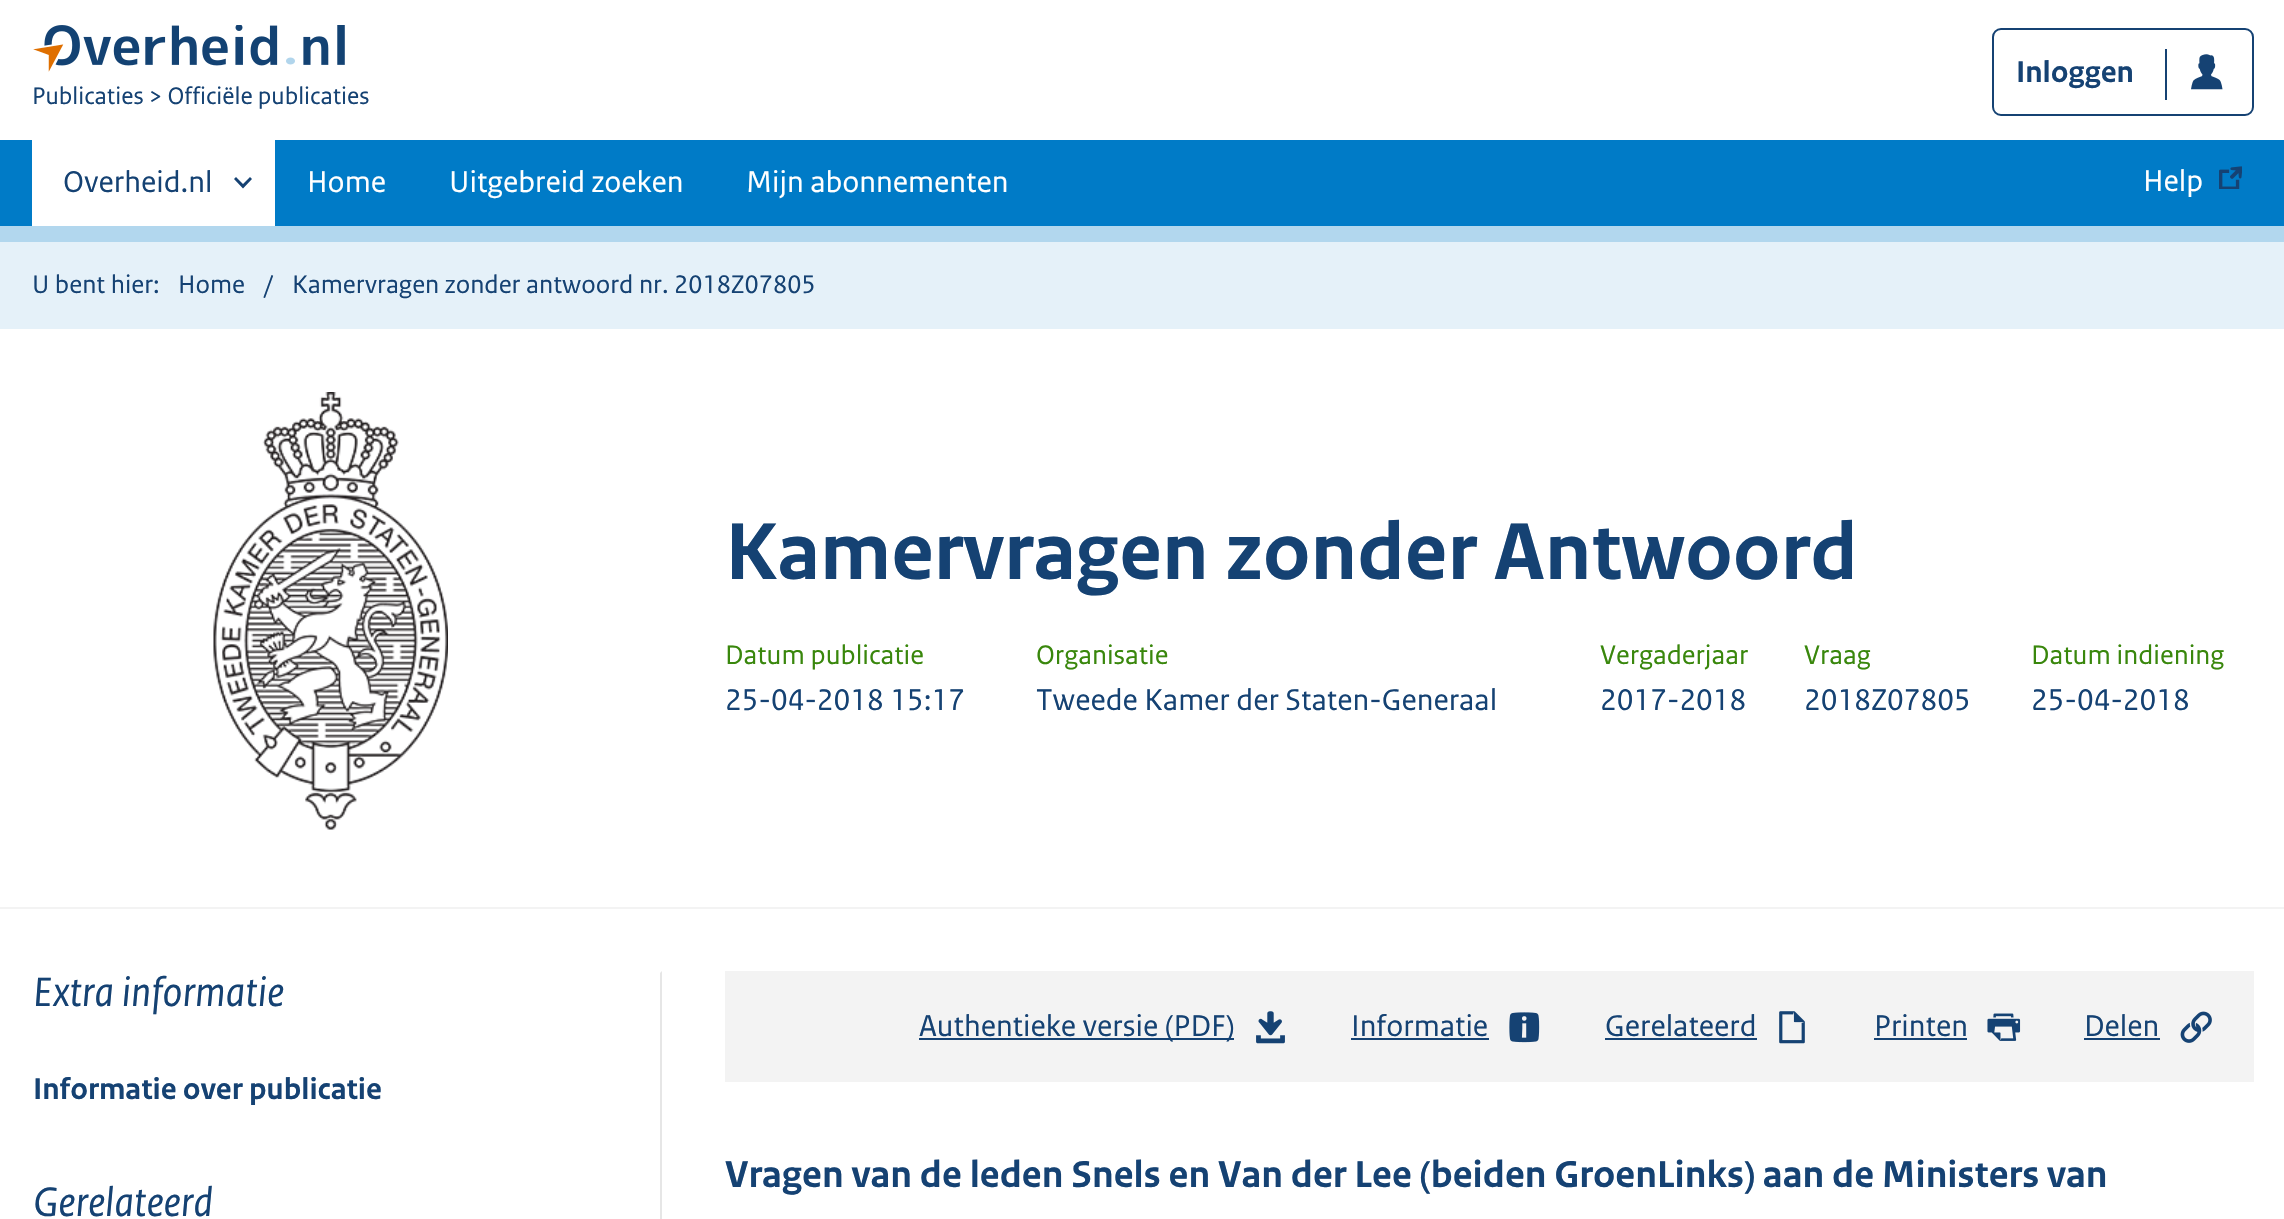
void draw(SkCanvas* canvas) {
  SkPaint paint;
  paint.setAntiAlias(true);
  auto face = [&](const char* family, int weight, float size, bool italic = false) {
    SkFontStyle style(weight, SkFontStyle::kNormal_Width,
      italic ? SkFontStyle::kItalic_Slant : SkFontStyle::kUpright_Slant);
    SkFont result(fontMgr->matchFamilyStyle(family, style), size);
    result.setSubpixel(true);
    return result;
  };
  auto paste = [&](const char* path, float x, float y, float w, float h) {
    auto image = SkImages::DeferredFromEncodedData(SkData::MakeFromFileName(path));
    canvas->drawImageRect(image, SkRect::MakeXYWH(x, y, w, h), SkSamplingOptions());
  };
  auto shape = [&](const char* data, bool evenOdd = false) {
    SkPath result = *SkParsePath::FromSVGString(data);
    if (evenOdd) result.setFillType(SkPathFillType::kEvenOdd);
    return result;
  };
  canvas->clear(0xffffffff);
  paint.setColor(0xffb2d7ee);
  canvas->drawRect(SkRect::MakeXYWH(0, 226, 2284, 16), paint);
  paste("img/1.png", 2191, 54, 32, 36);
  paint.setStroke(true);
  paint.setStrokeWidth(2);
  paint.setColor(0xff154273);
  canvas->drawRoundRect(SkRect::MakeXYWH(1993, 29, 260, 86), 8, 8, paint);
  paint.setStroke(false);
  canvas->drawRect(SkRect::MakeXYWH(2165, 49, 2, 51), paint);
  paste("img/2.png", 33, 25, 312, 47);
  paint.setColor(0xff007bc7);
  canvas->drawRect(SkRect::MakeXYWH(0, 140, 2284, 86), paint);
  paint.setColor(0xffffffff);
  canvas->drawRect(SkRect::MakeXYWH(32, 140, 243, 86), paint);
  paint.setColor(0xff154273);
  canvas->drawPath(shape("M252 179L250 177L243 184L236 177L234 179L243 188.5Z"), paint);
  paste("img/3.png", 2219, 166, 23, 23);
  paint.setColor(0xffe5f1f9);
  canvas->drawRect(SkRect::MakeXYWH(0, 242, 2284, 87), paint);
  paint.setColor(0xfff3f3f3);
  canvas->drawRect(SkRect::MakeXYWH(0, 907, 2284, 2), paint);
  paste("img/4.png", 213, 392, 235, 438);
  paint.setColor(0xffe6e6e6);
  canvas->drawPath(shape("M662 971V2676L660 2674V973Z"), paint);
  paint.setColor(0xfff3f3f3);
  canvas->drawRect(SkRect::MakeXYWH(725, 971, 1529, 111), paint);
  paint.setColor(0xff154273);
  canvas->drawRect(SkRect::MakeXYWH(919, 1038, 315, 2), paint);
  paste("img/5.png", 1256, 1011, 29, 33);
  canvas->drawRect(SkRect::MakeXYWH(1351, 1038, 138, 2), paint);
  paste("img/6.png", 1509, 1012, 31, 31);
  canvas->drawRect(SkRect::MakeXYWH(1605, 1038, 152, 2), paint);
  paste("img/7.png", 1779, 1011, 26, 33);
  canvas->drawRect(SkRect::MakeXYWH(1874, 1038, 93, 2), paint);
  paste("img/8.png", 1987, 1013, 34, 28);
  canvas->drawRect(SkRect::MakeXYWH(2084, 1038, 76, 2), paint);
  paste("img/9.png", 2180, 1011, 32, 32);
  auto f0 = face("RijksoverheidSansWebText", 700, 31.5f);
  canvas->drawString("Inloggen", 2016, 82, f0, paint);
  auto f1 = face("RijksoverheidSansWebText", 400, 25.25f);
  canvas->drawString("Publicaties > Officiële publicaties", 32, 104, f1, paint);
  auto f2 = face("RijksoverheidSansWebText", 400, 31.5f);
  canvas->drawString("Overheid.nl", 63, 192, f2, paint);
  paint.setColor(0xffffffff);
  {
    const struct { const char* s; float x, y; } items[] = {
      {"Home", 307, 192},
      {"Uitgebreid zoeken", 449, 192},
      {"Mijn abonnementen", 746, 192},
      {"Help", 2143, 191},
    };
    for (auto [s, x, y] : items) {
      canvas->drawString(s, x, y, f2, paint);
    }
  }
  auto f3 = face("RijksoverheidSansWebText", 400, 26.75f);
  paint.setColor(0xff154273);
  {
    const struct { const char* s; float x, y; } items[] = {
      {"U bent hier:", 32, 293},
      {"Home", 178, 293},
      {"/", 264, 293},
      {"Kamervragen zonder antwoord nr. 2018Z07805", 292, 293},
    };
    for (auto [s, x, y] : items) {
      canvas->drawString(s, x, y, f3, paint);
    }
  }
  auto f4 = face("RijksoverheidSansWebText", 700, 84.7f);
  canvas->drawString("Kamervragen zonder Antwoord", 725, 579, f4, paint);
  auto f5 = face("RijksoverheidSansWebText", 400, 28.25f);
  paint.setColor(0xff39870c);
  {
    const struct { const char* s; float x, y; } items[] = {
      {"Datum publicatie", 725, 664},
      {"Organisatie", 1036, 664},
      {"Vergaderjaar", 1600, 664},
      {"Vraag", 1804, 664},
      {"Datum indiening", 2031, 664},
    };
    for (auto [s, x, y] : items) {
      canvas->drawString(s, x, y, f5, paint);
    }
  }
  paint.setColor(0xff154273);
  {
    const struct { const char* s; float x, y; } items[] = {
      {"25-04-2018 15:17", 725, 710},
      {"Tweede Kamer der Staten-Generaal", 1036, 710},
      {"2017-2018", 1600, 710},
      {"2018Z07805", 1804, 710},
      {"25-04-2018", 2031, 710},
    };
    for (auto [s, x, y] : items) {
      canvas->drawString(s, x, y, f2, paint);
    }
  }
  auto f6 = face("RijksoverheidSansWebText", 400, 43.25f, true);
  canvas->drawString("Extra informatie", 33, 1006, f6, paint);
  canvas->drawString("Informatie over publicatie", 33, 1099, f0, paint);
  canvas->drawString("Gerelateerd", 33, 1216, f6, paint);
  {
    const struct { const char* s; float x, y; } items[] = {
      {"Authentieke versie (PDF)", 919, 1036},
      {"Informatie", 1351, 1036},
      {"Gerelateerd", 1605, 1036},
      {"Printen", 1874, 1036},
      {"Delen", 2084, 1036},
    };
    for (auto [s, x, y] : items) {
      canvas->drawString(s, x, y, f2, paint);
    }
  }
  auto f7 = face("RijksoverheidSansWebText", 700, 39.4f);
  canvas->drawString("Vragen van de leden Snels en Van der Lee (beiden GroenLinks) aan de Ministers van", 725, 1187, f7, paint);
}
